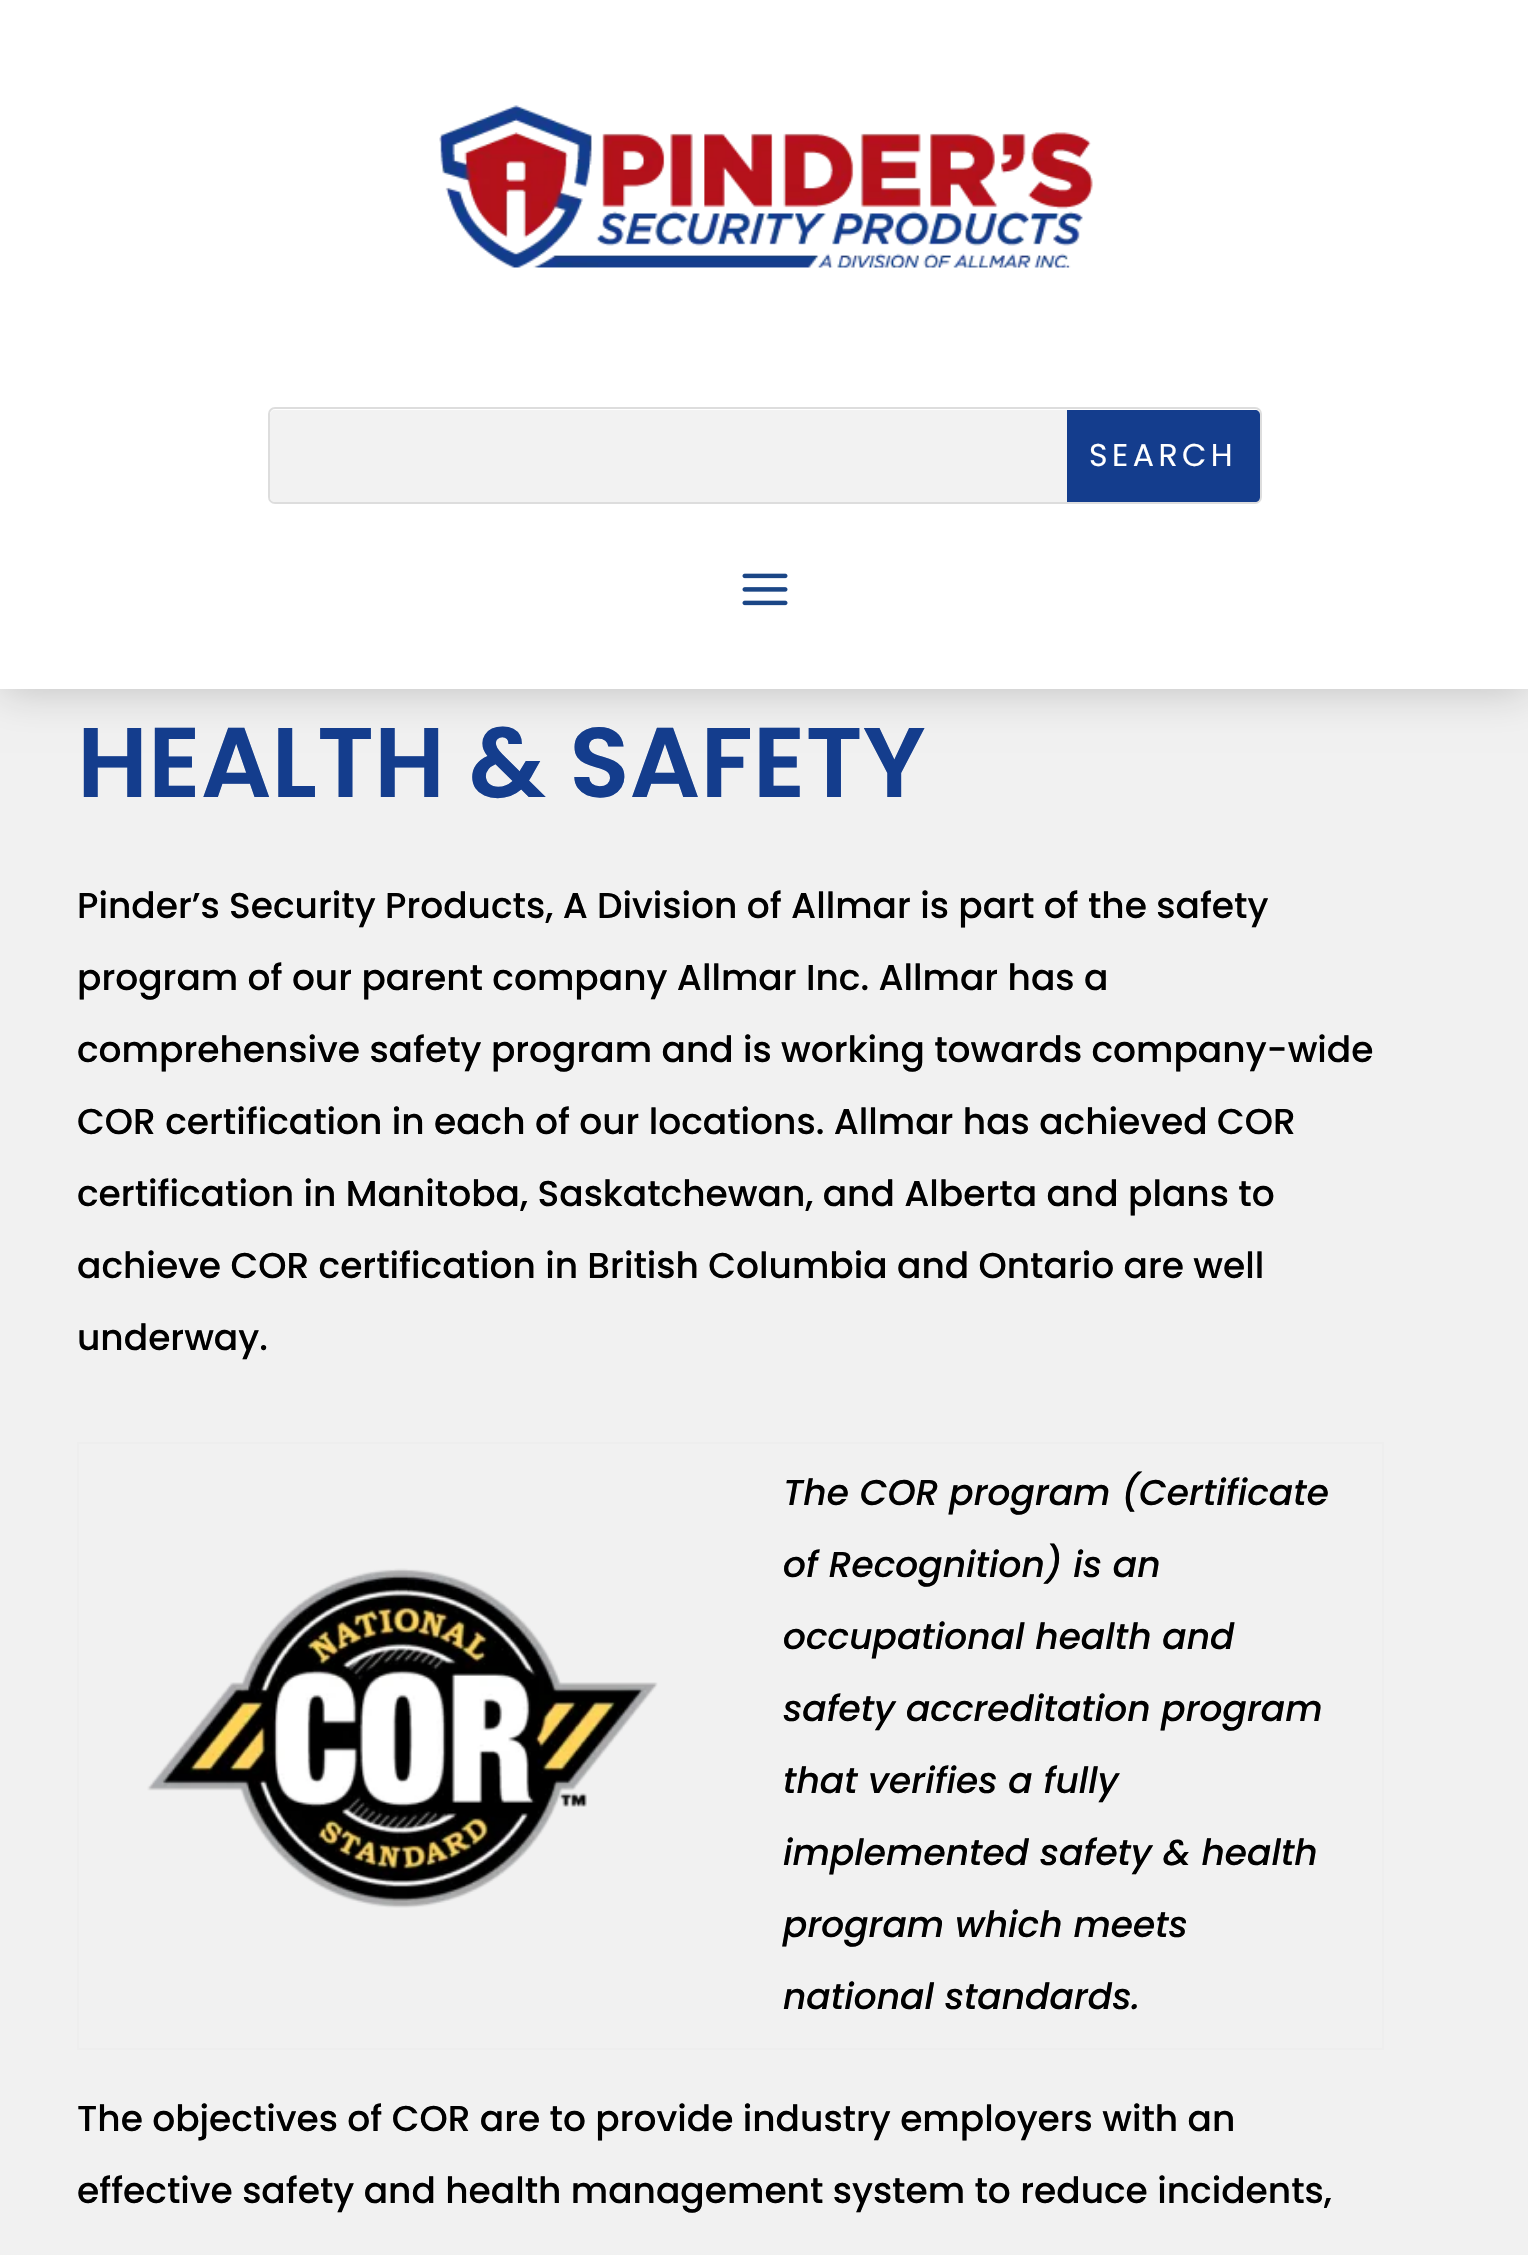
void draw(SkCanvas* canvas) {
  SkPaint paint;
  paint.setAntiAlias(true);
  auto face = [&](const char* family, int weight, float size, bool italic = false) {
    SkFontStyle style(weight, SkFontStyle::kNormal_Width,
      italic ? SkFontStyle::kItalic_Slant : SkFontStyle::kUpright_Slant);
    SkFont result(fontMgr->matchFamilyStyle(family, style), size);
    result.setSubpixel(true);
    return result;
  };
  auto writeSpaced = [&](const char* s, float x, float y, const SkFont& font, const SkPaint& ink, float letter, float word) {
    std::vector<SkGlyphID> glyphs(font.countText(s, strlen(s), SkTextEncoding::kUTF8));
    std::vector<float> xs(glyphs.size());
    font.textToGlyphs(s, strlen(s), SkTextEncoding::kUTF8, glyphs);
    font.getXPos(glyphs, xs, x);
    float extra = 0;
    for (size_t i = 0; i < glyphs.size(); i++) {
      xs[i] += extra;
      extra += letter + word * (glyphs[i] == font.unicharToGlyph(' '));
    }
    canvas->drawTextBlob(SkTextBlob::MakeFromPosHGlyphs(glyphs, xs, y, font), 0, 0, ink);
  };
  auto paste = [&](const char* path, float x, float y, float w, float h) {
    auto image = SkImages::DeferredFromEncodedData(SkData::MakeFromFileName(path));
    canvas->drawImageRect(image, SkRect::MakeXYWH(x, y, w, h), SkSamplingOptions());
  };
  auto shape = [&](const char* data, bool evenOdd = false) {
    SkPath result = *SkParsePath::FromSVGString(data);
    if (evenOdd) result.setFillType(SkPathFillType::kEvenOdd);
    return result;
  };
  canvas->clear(0xfff1f1f1);
  paint.setColor(0x2e000000);
  paint.setMaskFilter(SkMaskFilter::MakeBlur(kNormal_SkBlurStyle, 20));
  canvas->drawRect(SkRect::MakeXYWH(0, 5, 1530, 688), paint);
  paint.setMaskFilter(nullptr);
  paint.setColor(0xffffffff);
  canvas->drawRect(SkRect::MakeXYWH(0, 0, 1528, 689), paint);
  paste("img/1.png", 439, 105, 654, 163);
  paint.setStroke(true);
  paint.setStrokeWidth(2);
  paint.setColor(0xffdddddd);
  canvas->drawRoundRect(SkRect::MakeXYWH(269, 408, 992, 95), 6, 6, paint);
  paint.setStroke(false);
  paint.setColor(0xfff2f2f2);
  canvas->drawPath(shape("M275 410H1067V502H275C272 502 270 500 270 497V415C270 412 272 410 275 410Z"), paint);
  paint.setColor(0xff143d8d);
  canvas->drawPath(shape("M1067 410H1255C1258 410 1260 412 1260 415V497C1260 500 1258 502 1255 502H1067Z"), paint);
  paste("img/2.png", 742, 573, 46, 33);
  {
    const struct { float x, y, w, h; SkColor color; } items[] = {
      {77, 1442, 1307, 2, 0xffeeeeee},
      {1382, 1442, 2, 608, 0xffeeeeee},
      {77, 2048, 1307, 2, 0xffeeeeee},
      {77, 1442, 2, 608, 0xffeeeeee},
    };
    for (auto [x, y, w, h, color] : items) {
      paint.setColor(color);
      canvas->drawRect(SkRect::MakeXYWH(x, y, w, h), paint);
    }
  }
  paste("img/3.png", 147, 1568, 511, 340);
  auto f0 = face("Poppins", 400, 31.5f);
  paint.setColor(0xffffffff);
  writeSpaced("SEARCH", 1089, 466, f0, paint, 4.5f, 0);
  auto f1 = face("Poppins", 600, 99);
  paint.setColor(0xff143d8d);
  canvas->drawString("HEALTH & SAFETY", 77, 797, f1, paint);
  auto f2 = face("Poppins", 500, 36);
  paint.setColor(0xff000000);
  {
    const struct { const char* s; float x, y; } items[] = {
      {"Pinder’s Security Products, A Division of Allmar is part of the safety", 77, 918},
      {"program of our parent company Allmar Inc. Allmar has a", 77, 990},
      {"comprehensive safety program and is working towards company-wide", 77, 1062},
      {"COR certification in each of our locations. Allmar has achieved COR", 77, 1134},
      {"certification in Manitoba, Saskatchewan, and Alberta and plans to", 77, 1206},
      {"achieve COR certification in British Columbia and Ontario are well", 77, 1278},
      {"underway.", 77, 1350},
    };
    for (auto [s, x, y] : items) {
      canvas->drawString(s, x, y, f2, paint);
    }
  }
  auto f3 = face("Poppins", 500, 36, true);
  {
    const struct { const char* s; float x, y; } items[] = {
      {"The COR program (Certificate", 783, 1505},
      {"of Recognition) is an", 783, 1577},
      {"occupational health and", 783, 1649},
      {"safety accreditation program", 783, 1721},
      {"that verifies a fully", 783, 1793},
      {"implemented safety & health", 783, 1865},
      {"program which meets", 783, 1937},
      {"national standards.", 783, 2009},
    };
    for (auto [s, x, y] : items) {
      canvas->drawString(s, x, y, f3, paint);
    }
  }
  canvas->drawString("The objectives of COR are to provide industry employers with an", 77, 2131, f2, paint);
  canvas->drawString("effective safety and health management system to reduce incidents,", 77, 2203, f2, paint);
}
